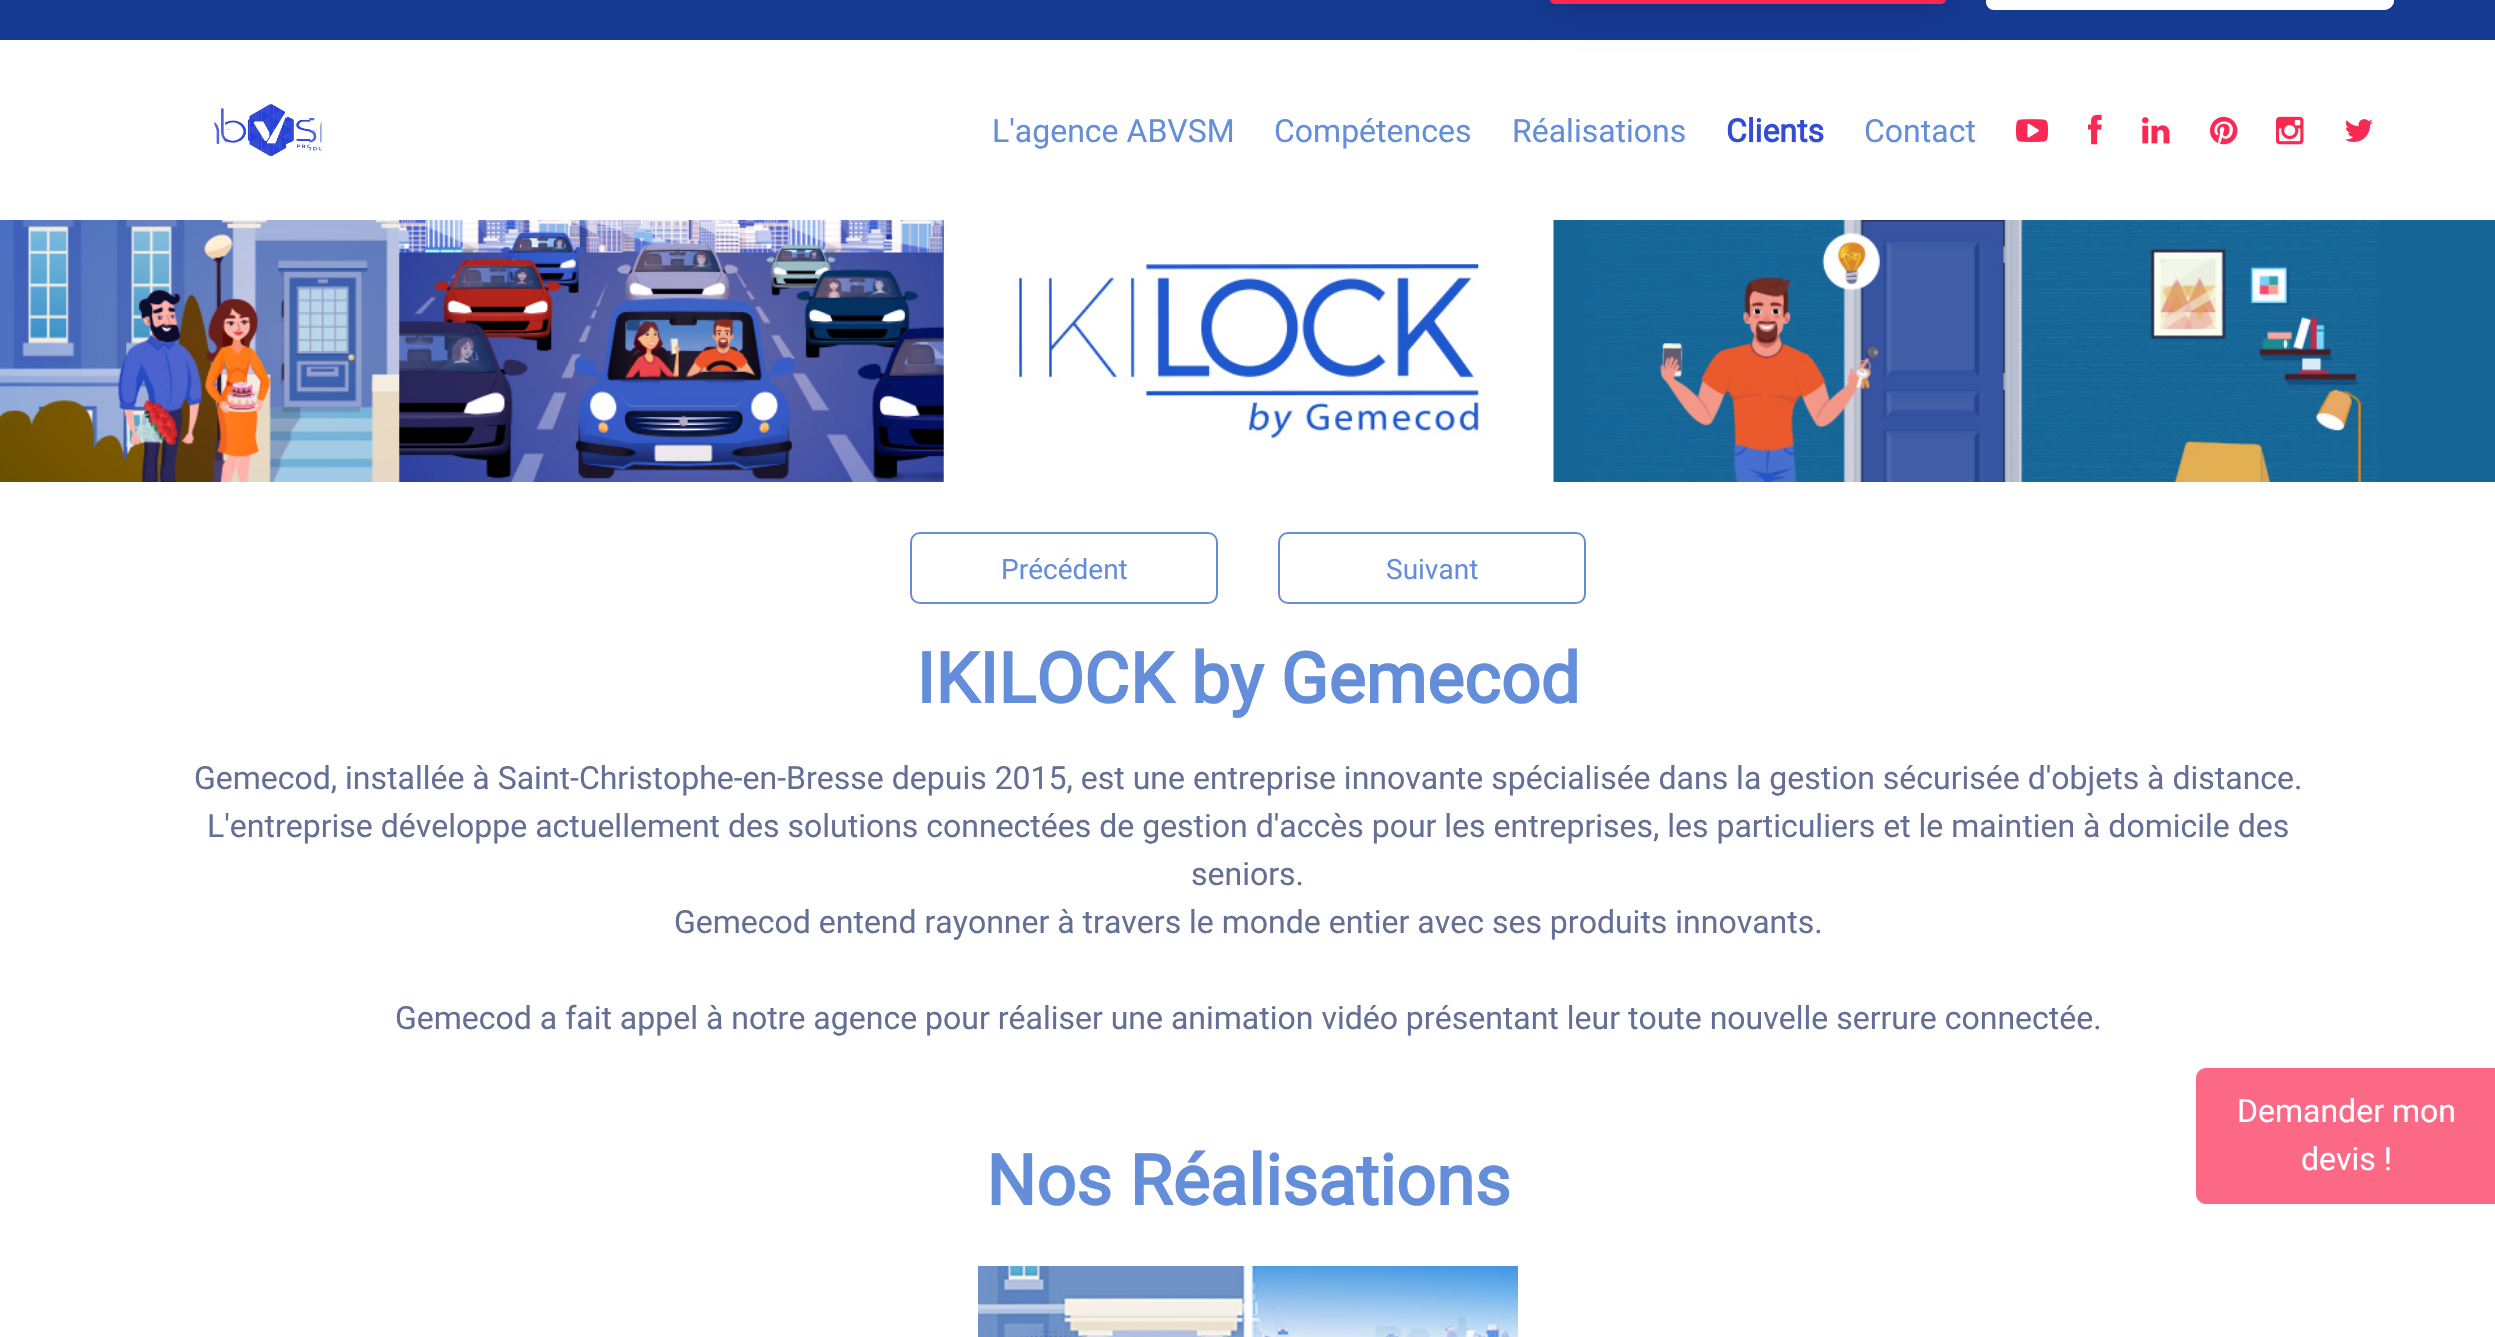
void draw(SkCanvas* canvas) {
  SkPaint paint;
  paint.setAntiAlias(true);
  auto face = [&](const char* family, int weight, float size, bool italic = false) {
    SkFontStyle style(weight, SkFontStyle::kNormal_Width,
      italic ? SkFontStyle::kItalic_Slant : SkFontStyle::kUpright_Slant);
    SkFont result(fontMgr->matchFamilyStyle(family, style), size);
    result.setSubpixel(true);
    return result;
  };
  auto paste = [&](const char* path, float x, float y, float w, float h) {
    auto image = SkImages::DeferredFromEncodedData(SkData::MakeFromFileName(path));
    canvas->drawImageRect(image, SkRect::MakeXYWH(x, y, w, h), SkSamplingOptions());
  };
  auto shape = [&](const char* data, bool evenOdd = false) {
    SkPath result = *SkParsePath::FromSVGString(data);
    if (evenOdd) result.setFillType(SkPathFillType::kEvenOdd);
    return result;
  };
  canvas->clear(0xffffffff);
  paint.setColor(0xff143a92);
  canvas->drawRect(SkRect::MakeXYWH(0, 0, 2495, 40), paint);
  paint.setColor(0x33000000);
  paint.setMaskFilter(SkMaskFilter::MakeBlur(kNormal_SkBlurStyle, 20));
  canvas->drawRoundRect(SkRect::MakeXYWH(1550, -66, 396, 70), 6, 6, paint);
  paint.setMaskFilter(nullptr);
  paint.setColor(0xfffa2953);
  canvas->drawRoundRect(SkRect::MakeXYWH(1550, -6, 396, 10), 6, 6, paint);
  paint.setColor(0xffffffff);
  canvas->drawRoundRect(SkRect::MakeXYWH(1986, -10, 408, 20), 10, 10, paint);
  canvas->drawRoundRect(SkRect::MakeXYWH(1986, -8, 326, 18), 8, 8, paint);
  canvas->drawRoundRect(SkRect::MakeXYWH(2344, -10, 50, 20), 10, 10, paint);
  paste("img/1.png", 214, 104, 108, 52);
  paste("img/2.png", 2016, 119, 32, 23);
  paste("img/3.png", 2088, 114, 14, 31);
  paste("img/4.png", 2142, 117, 28, 27);
  paste("img/5.png", 2210, 116, 28, 29);
  paste("img/6.png", 2276, 116, 28, 29);
  paste("img/7.png", 2345, 119, 28, 23);
  paste("img/8.png", 0, 220, 2495, 262);
  paint.setStroke(true);
  paint.setStrokeWidth(2);
  paint.setColor(0xff648ed9);
  canvas->drawRoundRect(SkRect::MakeXYWH(911, 533, 306, 70), 9, 9, paint);
  canvas->drawRoundRect(SkRect::MakeXYWH(1279, 533, 306, 70), 9, 9, paint);
  paste("img/9.png", 978, 1266, 540, 71);
  paint.setStroke(false);
  paint.setColor(0xfffc6987);
  canvas->drawPath(shape("M2206 1068H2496V1204H2206C2200.5 1204 2196 1199.5 2196 1194V1078C2196 1072.5 2200.5 1068 2206 1068Z"), paint);
  auto f0 = face("Roboto", 400, 32);
  paint.setColor(0xff648ed9);
  {
    const struct { const char* s; float x, y; } items[] = {
      {"L'agence ABVSM", 992, 142},
      {"Compétences", 1274, 142},
      {"Réalisations", 1512, 142},
    };
    for (auto [s, x, y] : items) {
      canvas->drawString(s, x, y, f0, paint);
    }
  }
  auto f1 = face("Roboto", 700, 32);
  paint.setColor(0xff334cd5);
  canvas->drawString("Clients", 1726, 142, f1, paint);
  paint.setColor(0xff648ed9);
  canvas->drawString("Contact", 1864, 142, f0, paint);
  auto f2 = face("Roboto", 400, 28);
  canvas->drawString("Précédent", 1001, 579, f2, paint);
  canvas->drawString("Suivant", 1386, 579, f2, paint);
  auto f3 = face("Roboto", 700, 70);
  canvas->drawString("IKILOCK by Gemecod", 916, 703, f3, paint);
  paint.setColor(0xff646f95);
  {
    const struct { const char* s; float x, y; } items[] = {
      {"Gemecod, installée à Saint-Christophe-en-Bresse depuis 2015, est une entreprise innovante spécialisée dans la gestion sécurisée d'objets à distance.", 194, 789},
      {"L'entreprise développe actuellement des solutions connectées de gestion d'accès pour les entreprises, les particuliers et le maintien à domicile des", 207, 837},
      {"seniors.", 1191, 885},
      {"Gemecod entend rayonner à travers le monde entier avec ses produits innovants.", 674, 933},
      {"Gemecod a fait appel à notre agence pour réaliser une animation vidéo présentant leur toute nouvelle serrure connectée.", 395, 1029},
    };
    for (auto [s, x, y] : items) {
      canvas->drawString(s, x, y, f0, paint);
    }
  }
  paint.setColor(0xff648ed9);
  canvas->drawString("Nos Réalisations", 986, 1205, f3, paint);
  paint.setColor(0xffffffff);
  canvas->drawString("Demander mon", 2237, 1122, f0, paint);
  canvas->drawString("devis !", 2301, 1170, f0, paint);
}
